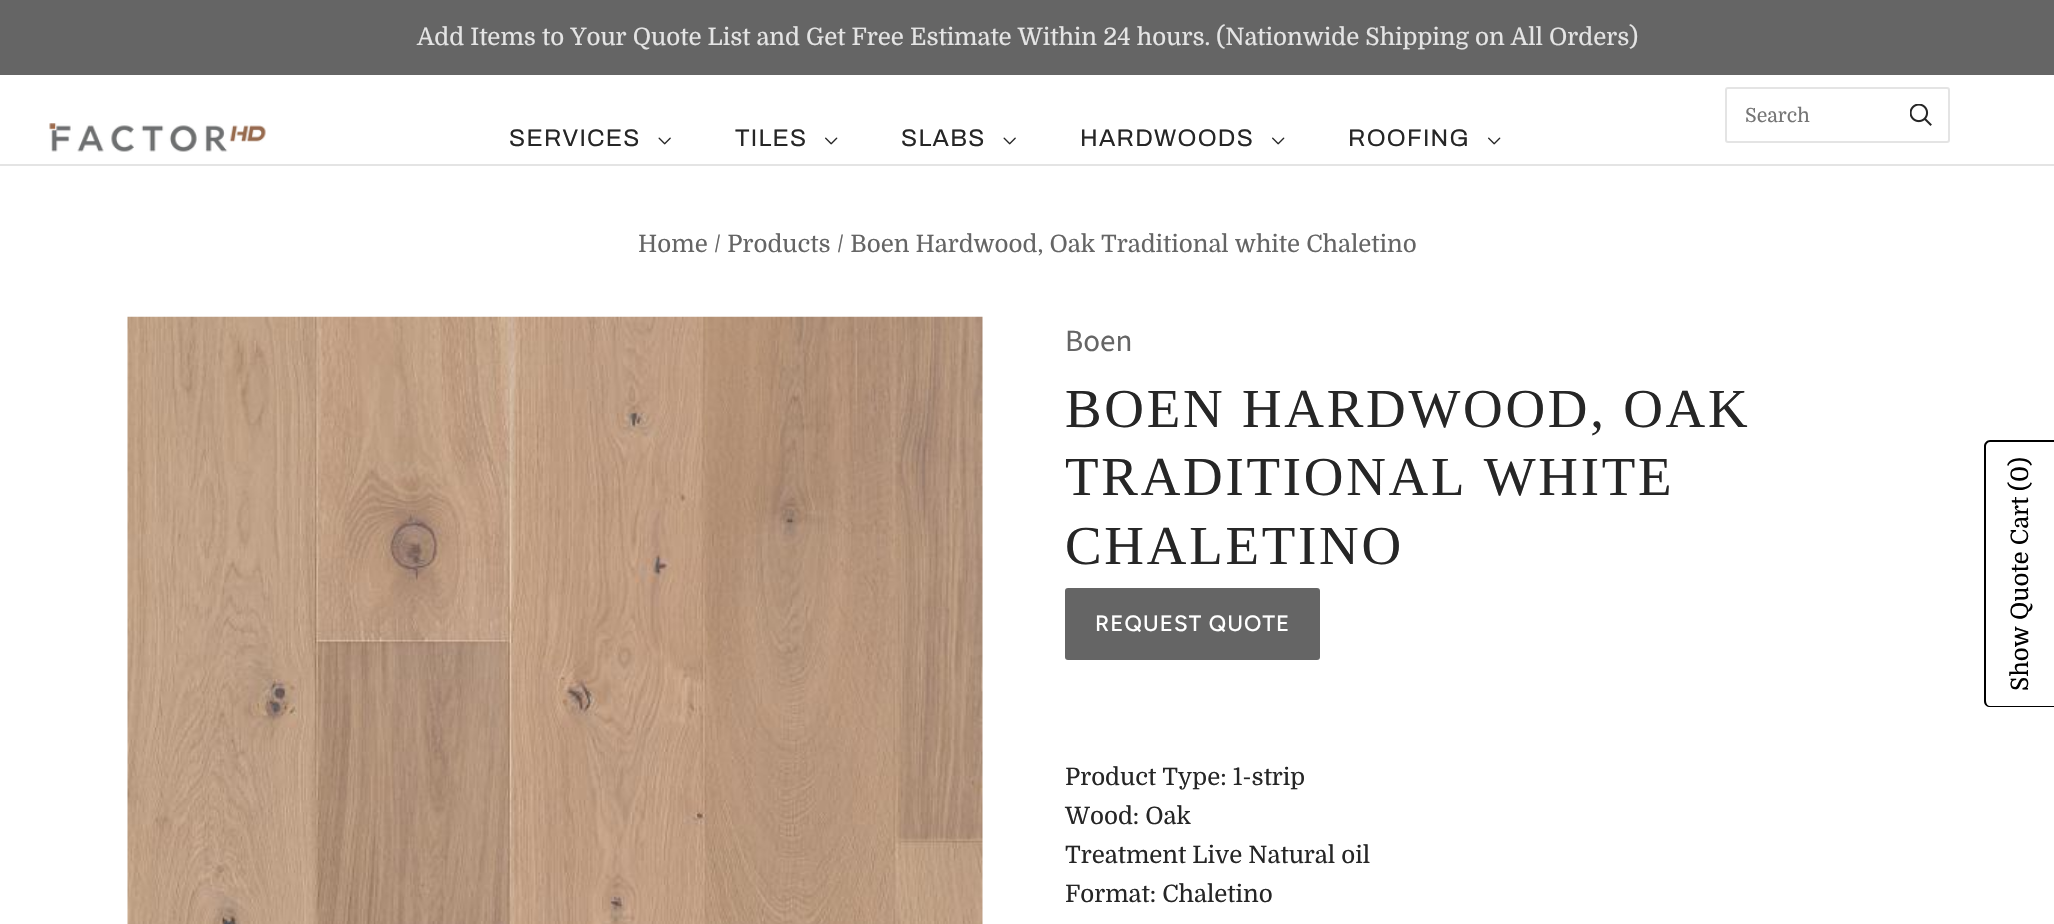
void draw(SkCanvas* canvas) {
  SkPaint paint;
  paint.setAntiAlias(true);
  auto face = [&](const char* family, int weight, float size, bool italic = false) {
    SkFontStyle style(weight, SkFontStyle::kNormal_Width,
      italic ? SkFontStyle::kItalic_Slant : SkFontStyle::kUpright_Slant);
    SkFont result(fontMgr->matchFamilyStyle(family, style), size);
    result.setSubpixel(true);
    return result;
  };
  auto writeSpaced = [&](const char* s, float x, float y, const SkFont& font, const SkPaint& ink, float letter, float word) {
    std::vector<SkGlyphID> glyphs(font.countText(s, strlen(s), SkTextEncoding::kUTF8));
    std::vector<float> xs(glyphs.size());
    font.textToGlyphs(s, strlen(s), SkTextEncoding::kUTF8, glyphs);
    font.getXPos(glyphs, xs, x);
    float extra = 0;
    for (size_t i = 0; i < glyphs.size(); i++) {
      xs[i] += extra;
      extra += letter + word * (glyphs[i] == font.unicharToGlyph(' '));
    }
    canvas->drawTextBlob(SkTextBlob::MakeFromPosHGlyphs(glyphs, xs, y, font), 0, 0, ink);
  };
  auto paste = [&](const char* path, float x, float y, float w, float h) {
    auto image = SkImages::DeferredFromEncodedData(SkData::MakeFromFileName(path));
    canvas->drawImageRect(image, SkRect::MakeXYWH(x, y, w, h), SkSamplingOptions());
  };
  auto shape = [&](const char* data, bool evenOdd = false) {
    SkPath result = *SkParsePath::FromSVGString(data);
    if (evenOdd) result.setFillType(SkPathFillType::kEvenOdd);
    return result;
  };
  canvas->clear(0xffffffff);
  paint.setColor(0xff656565);
  canvas->drawRect(SkRect::MakeXYWH(0, 0, 2054, 75), paint);
  paint.setColor(0xffe4e4e4);
  canvas->drawRect(SkRect::MakeXYWH(0, 164, 2054, 2), paint);
  paint.setStroke(true);
  paint.setStrokeWidth(2);
  canvas->drawRoundRect(SkRect::MakeXYWH(1726, 88, 223, 54), 2, 2, paint);
  paste("img/1.png", 1910, 104, 22, 22);
  paste("img/2.png", 49, 123, 217, 29);
  paste("img/3.png", 658, 137, 13, 8);
  paste("img/4.png", 825, 137, 13, 8);
  paste("img/3.png", 1003, 137, 13, 8);
  paste("img/4.png", 1272, 137, 13, 8);
  paste("img/4.png", 1488, 137, 13, 8);
  paste("img/5.png", 127, 316, 856, 608);
  paint.setStroke(false);
  paint.setColor(0xff656565);
  canvas->drawRoundRect(SkRect::MakeXYWH(1065, 588, 255, 72), 3, 3, paint);
  paint.setColor(0xff000000);
  canvas->drawPath(shape("M1984 701V446C1984 443 1987 440 1990 440H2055V707H1990C1987 707 1984 705 1984 701ZM1986 701V446C1986 444 1988 442 1990 442H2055V706H1990C1988 706 1986 704 1986 701Z", true), paint);
  auto f0 = face("Domine", 400, 24);
  paint.setColor(0xffe4e4e4);
  canvas->drawString("Add Items to Your Quote List and Get Free Estimate Within 24 hours. (Nationwide Shipping on All Orders)", 417, 45, f0, paint);
  auto f1 = face("Domine", 400, 19.5f);
  paint.setColor(0xff757575);
  canvas->drawString("Search", 1745, 122, f1, paint);
  auto f2 = face("Archivo", 400, 24);
  paint.setColor(0xff262626);
  {
    const struct { const char* s; float x, y; } items[] = {
      {"SERVICES", 509, 146},
      {"TILES", 735, 146},
      {"SLABS", 901, 146},
      {"HARDWOODS", 1080, 146},
      {"ROOFING", 1348, 146},
    };
    for (auto [s, x, y] : items) {
      writeSpaced(s, x, y, f2, paint, 1.25f, 0);
    }
  }
  paint.setColor(0xff656565);
  canvas->drawString("Home / Products / Boen Hardwood, Oak Traditional white Chaletino", 638, 252, f0, paint);
  auto f3 = face("Source Sans Pro", 400, 31);
  canvas->drawString("Boen", 1065, 351, f3, paint);
  auto f4 = face("Liberation Serif", 400, 54.9f);
  paint.setColor(0xff262626);
  {
    const struct { const char* s; float x, y; } items[] = {
      {"BOEN HARDWOOD, OAK", 1065, 427},
      {"TRADITIONAL WHITE", 1065, 495},
      {"CHALETINO", 1065, 564},
    };
    for (auto [s, x, y] : items) {
      writeSpaced(s, x, y, f4, paint, 2.75f, 0);
    }
  }
  auto f5 = face("Figtree", 500, 22.25f);
  paint.setColor(0xffffffff);
  writeSpaced("REQUEST QUOTE", 1095, 631, f5, paint, 1.1f, 0);
  paint.setColor(0xff262626);
  {
    const struct { const char* s; float x, y; } items[] = {
      {"Product Type: 1-strip", 1065, 785},
      {"Wood: Oak", 1065, 824},
      {"Treatment Live Natural oil", 1065, 863},
      {"Format: Chaletino", 1065, 902},
    };
    for (auto [s, x, y] : items) {
      canvas->drawString(s, x, y, f0, paint);
    }
  }
  paint.setColor(0xff000000);
  canvas->save();
  canvas->rotate(-90, 2028, 491);
  canvas->drawString("(0)", 2028, 491, f0, paint);
  canvas->restore();
  canvas->save();
  canvas->rotate(-90, 2028, 691);
  canvas->drawString("Show Quote Cart", 2028, 691, f0, paint);
  canvas->restore();
}
